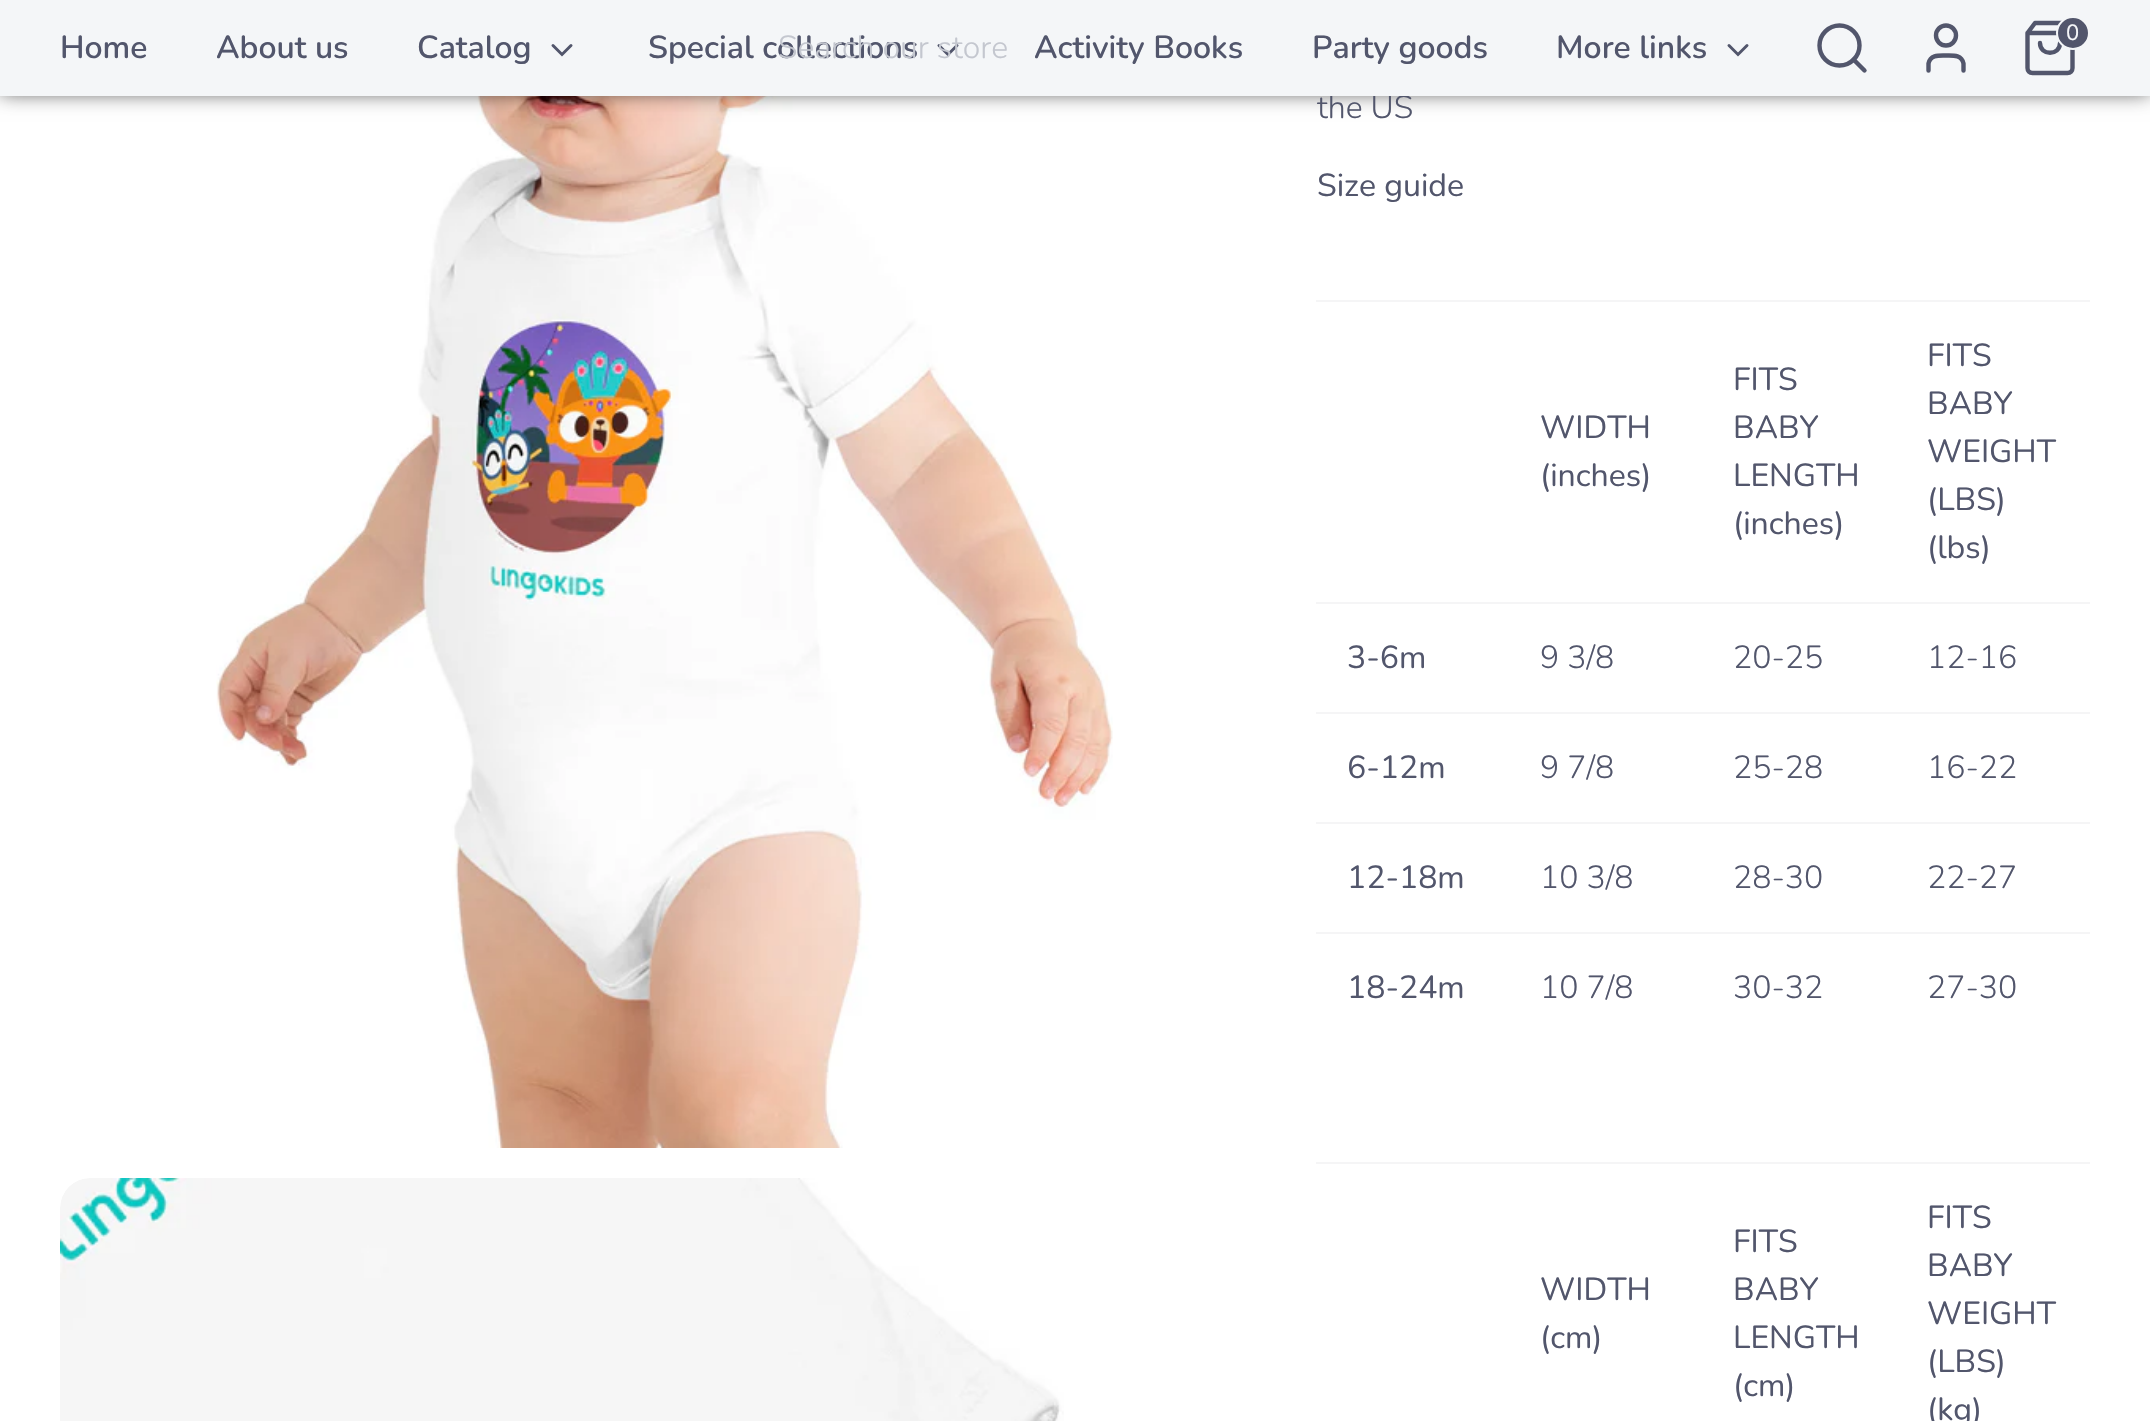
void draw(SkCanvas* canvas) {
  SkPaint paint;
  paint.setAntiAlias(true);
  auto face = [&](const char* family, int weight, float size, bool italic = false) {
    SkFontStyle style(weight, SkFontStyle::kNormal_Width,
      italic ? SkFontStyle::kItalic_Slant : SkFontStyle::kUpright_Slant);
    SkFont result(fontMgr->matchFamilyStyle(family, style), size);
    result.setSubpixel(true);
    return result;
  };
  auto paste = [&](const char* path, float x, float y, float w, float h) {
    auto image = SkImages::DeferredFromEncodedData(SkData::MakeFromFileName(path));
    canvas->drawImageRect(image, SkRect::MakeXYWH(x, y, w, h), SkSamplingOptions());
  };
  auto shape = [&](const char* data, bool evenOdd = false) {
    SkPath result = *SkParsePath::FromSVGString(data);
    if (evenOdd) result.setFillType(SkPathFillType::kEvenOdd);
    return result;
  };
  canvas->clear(0xffffffff);
  paste("img/1.png", 216, 96, 897, 1052);
  paint.setColor(0xbf000000);
  paint.setMaskFilter(SkMaskFilter::MakeBlur(kNormal_SkBlurStyle, 10));
  canvas->drawRect(SkRect::MakeXYWH(0, -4, 2150, 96), paint);
  paint.setMaskFilter(nullptr);
  paste("img/2.png", 60, 1178, 1004, 243);
  {
    const struct { float x, y, w, h; SkColor color; } items[] = {
      {1316, 300, 774, 2, 0xfff5f5f6},
      {1316, 602, 774, 2, 0xfff5f5f6},
      {1316, 712, 774, 2, 0xfff5f5f6},
      {1316, 822, 774, 2, 0xfff5f5f6},
      {1316, 932, 774, 2, 0xfff5f5f6},
      {1316, 1162, 774, 2, 0xfff5f5f6},
    };
    for (auto [x, y, w, h, color] : items) {
      paint.setColor(color);
      canvas->drawRect(SkRect::MakeXYWH(x, y, w, h), paint);
    }
  }
  auto f0 = face("Nunito", 300, 32);
  paint.setColor(0xff52566c);
  canvas->drawString("the US", 1317, 118, f0, paint);
  paint.setColor(0xfff4f6f8);
  canvas->drawRect(SkRect::MakeXYWH(0, 0, 2150, 96), paint);
  paint.setStroke(true);
  paint.setStrokeWidth(4.4f);
  paint.setStrokeCap(SkPaint::kRound_Cap);
  paint.setStrokeJoin(SkPaint::kRound_Join);
  paint.setColor(0xff52566c);
  canvas->drawPath(shape("M2035 23L2027.5 33V68C2027.5 71 2029.5 73 2032.5 73H2067.5C2070.5 73 2072.5 71 2072.5 68V33L2065 23ZM2027.5 33H2072.5M2060 43C2060 56 2040 56 2040 43"), paint);
  paint.setStroke(false);
  canvas->drawCircle(2073, 33, 16, paint);
  paint.setStroke(true);
  paint.setStrokeWidth(2);
  paint.setStrokeCap(SkPaint::kButt_Cap);
  paint.setStrokeJoin(SkPaint::kMiter_Join);
  paint.setColor(0xfff4f6f8);
  canvas->drawCircle(2073, 33, 16, paint);
  auto f1 = face("Nunito", 400, 22);
  paint.setStroke(false);
  canvas->drawString("0", 2066, 40, f1, paint);
  paint.setStroke(true);
  paint.setStrokeWidth(4.4f);
  paint.setColor(0xff52566c);
  canvas->drawCircle(1946, 35.5f, 10, paint);
  paint.setStrokeCap(SkPaint::kRound_Cap);
  paint.setStrokeJoin(SkPaint::kRound_Join);
  canvas->drawPath(shape("M1963.5 70.5V63.5C1961.5 54.5 1953 55.5 1946 55.5C1939 55.5 1930.5 54.5 1928.5 63.5V70.5"), paint);
  paint.setStrokeWidth(3);
  paint.setStrokeJoin(SkPaint::kMiter_Join);
  canvas->drawPath(shape("M939 45.5L948 54.5L957 45.5"), paint);
  auto f2 = face("Nunito", 600, 32);
  paint.setStroke(false);
  canvas->drawString("Special collections", 648, 58, f2, paint);
  paint.setColor(0xffc4c7cf);
  canvas->drawString("Search our store", 778, 58, f0, paint);
  paint.setStroke(true);
  paint.setStrokeWidth(4.4f);
  paint.setStrokeCap(SkPaint::kButt_Cap);
  paint.setColor(0xff52566c);
  canvas->drawCircle(1839.5f, 45.5f, 20, paint);
  paint.setStrokeCap(SkPaint::kRound_Cap);
  paint.setStrokeJoin(SkPaint::kRound_Join);
  canvas->drawPath(shape("M1864.5 70.5L1853.5 59.5"), paint);
  paint.setStrokeWidth(3);
  paint.setStrokeJoin(SkPaint::kMiter_Join);
  canvas->drawPath(shape("M1729 45.5L1738 54.5L1747 45.5"), paint);
  paint.setStroke(false);
  {
    const struct { const char* s; float x, y; } items[] = {
      {"More links", 1556, 58},
      {"Party goods", 1312, 58},
      {"Activity Books", 1034, 58},
    };
    for (auto [s, x, y] : items) {
      canvas->drawString(s, x, y, f2, paint);
    }
  }
  paint.setStroke(true);
  canvas->drawPath(shape("M553 45.5L562 54.5L571 45.5"), paint);
  paint.setStroke(false);
  {
    const struct { const char* s; float x, y; } items[] = {
      {"Catalog", 417, 58},
      {"About us", 216, 58},
      {"Home", 60, 58},
    };
    for (auto [s, x, y] : items) {
      canvas->drawString(s, x, y, f2, paint);
    }
  }
  auto f3 = face("Nunito", 400, 32);
  {
    const struct { const char* s; float x, y; } items[] = {
      {"Size guide", 1317, 196},
      {"WIDTH", 1540, 438},
      {"(inches)", 1540, 486},
      {"FITS", 1733, 390},
      {"BABY", 1733, 438},
      {"LENGTH", 1733, 486},
      {"(inches)", 1733, 534},
      {"FITS", 1927, 366},
      {"BABY", 1927, 414},
      {"WEIGHT", 1927, 462},
      {"(LBS)", 1927, 510},
      {"(lbs)", 1927, 558},
      {"3-6m", 1347, 668},
    };
    for (auto [s, x, y] : items) {
      canvas->drawString(s, x, y, f3, paint);
    }
  }
  {
    const struct { const char* s; float x, y; } items[] = {
      {"9 3/8", 1540, 668},
      {"20-25", 1733, 668},
      {"12-16", 1927, 668},
    };
    for (auto [s, x, y] : items) {
      canvas->drawString(s, x, y, f0, paint);
    }
  }
  canvas->drawString("6-12m", 1347, 778, f3, paint);
  {
    const struct { const char* s; float x, y; } items[] = {
      {"9 7/8", 1540, 778},
      {"25-28", 1733, 778},
      {"16-22", 1927, 778},
    };
    for (auto [s, x, y] : items) {
      canvas->drawString(s, x, y, f0, paint);
    }
  }
  canvas->drawString("12-18m", 1347, 888, f3, paint);
  {
    const struct { const char* s; float x, y; } items[] = {
      {"10 3/8", 1540, 888},
      {"28-30", 1733, 888},
      {"22-27", 1927, 888},
    };
    for (auto [s, x, y] : items) {
      canvas->drawString(s, x, y, f0, paint);
    }
  }
  canvas->drawString("18-24m", 1347, 998, f3, paint);
  {
    const struct { const char* s; float x, y; } items[] = {
      {"10 7/8", 1540, 998},
      {"30-32", 1733, 998},
      {"27-30", 1927, 998},
    };
    for (auto [s, x, y] : items) {
      canvas->drawString(s, x, y, f0, paint);
    }
  }
  {
    const struct { const char* s; float x, y; } items[] = {
      {"WIDTH", 1540, 1300},
      {"(cm)", 1540, 1348},
      {"FITS", 1733, 1252},
      {"BABY", 1733, 1300},
      {"LENGTH", 1733, 1348},
      {"(cm)", 1733, 1396},
      {"FITS", 1927, 1228},
      {"BABY", 1927, 1276},
      {"WEIGHT", 1927, 1324},
      {"(LBS)", 1927, 1372},
      {"(kg)", 1927, 1420},
    };
    for (auto [s, x, y] : items) {
      canvas->drawString(s, x, y, f3, paint);
    }
  }
}
